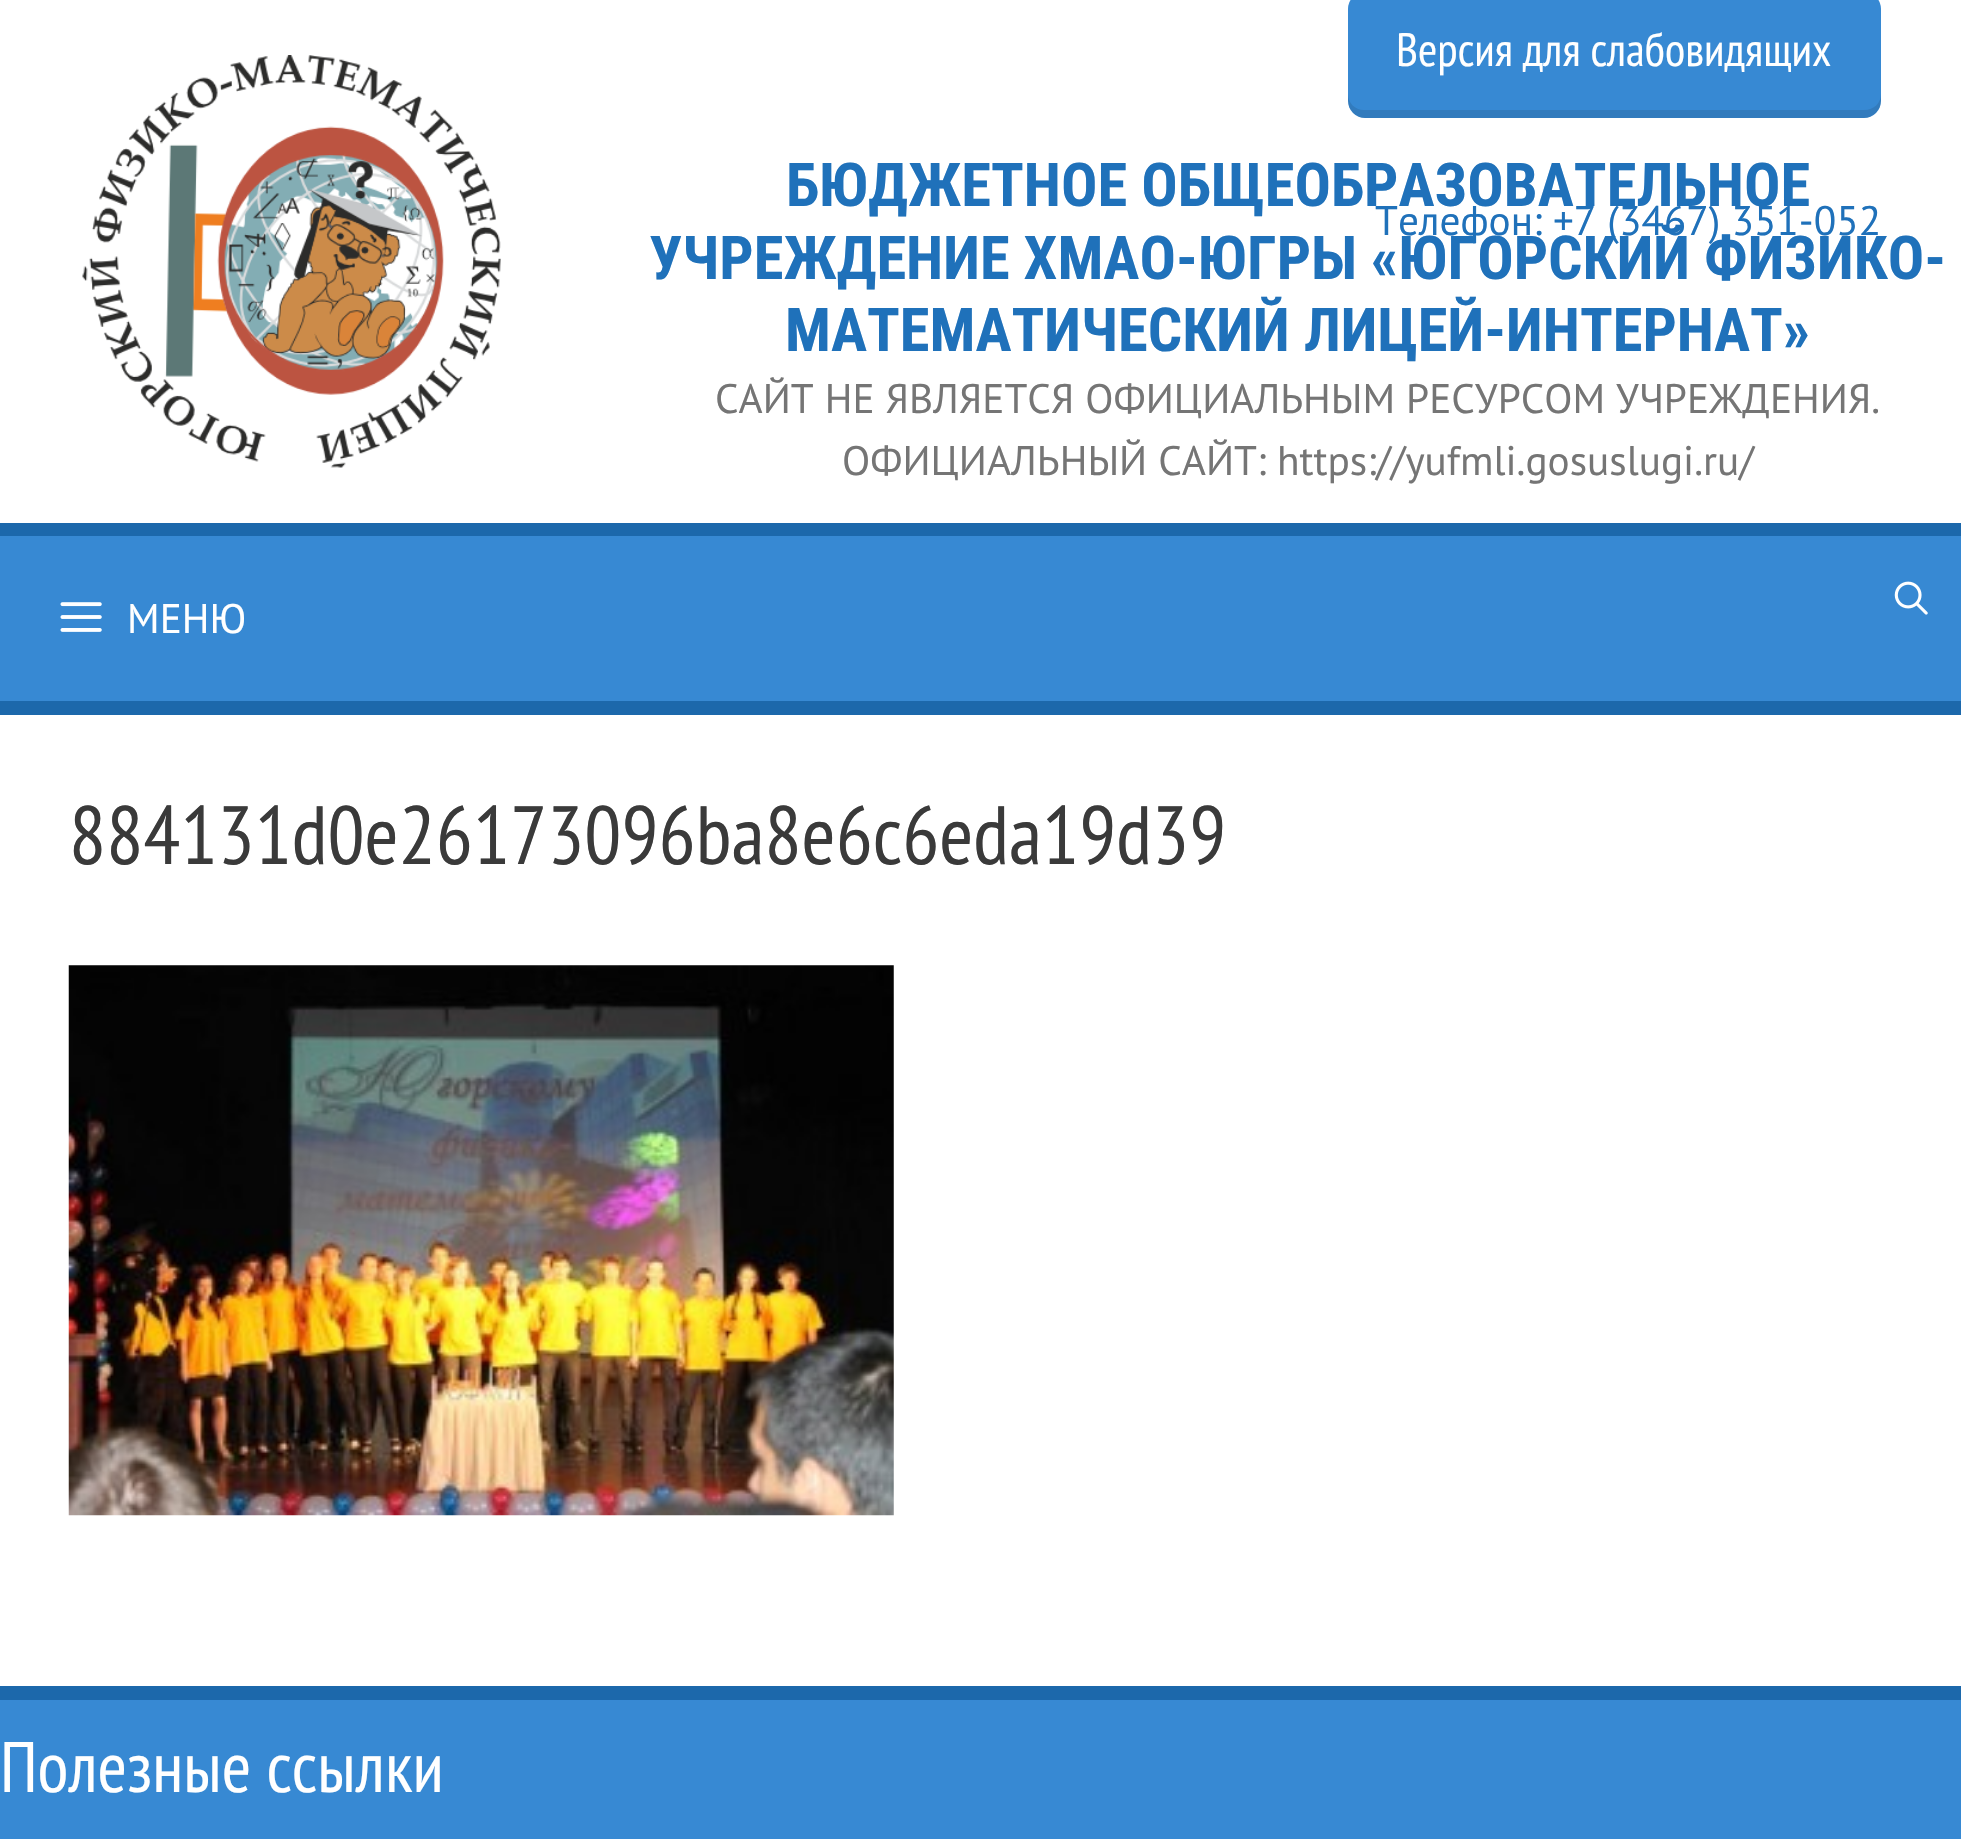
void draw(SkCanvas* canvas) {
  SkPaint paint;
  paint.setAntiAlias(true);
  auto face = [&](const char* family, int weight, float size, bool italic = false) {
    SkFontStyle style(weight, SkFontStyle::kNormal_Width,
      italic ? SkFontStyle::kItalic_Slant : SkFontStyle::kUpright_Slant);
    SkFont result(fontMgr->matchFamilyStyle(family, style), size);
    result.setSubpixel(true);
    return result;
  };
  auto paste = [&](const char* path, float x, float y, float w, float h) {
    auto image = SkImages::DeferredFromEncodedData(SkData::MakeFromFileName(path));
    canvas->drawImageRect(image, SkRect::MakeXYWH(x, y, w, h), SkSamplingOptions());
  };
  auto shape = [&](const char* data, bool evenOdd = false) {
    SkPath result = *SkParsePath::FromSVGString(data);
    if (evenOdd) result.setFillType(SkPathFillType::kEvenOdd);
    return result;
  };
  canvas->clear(0xff3789d3);
  paint.setColor(0xffffffff);
  canvas->drawRect(SkRect::MakeXYWH(0, 0, 1961, 523), paint);
  paste("img/1.png", 82, 55, 419, 413);
  paint.setColor(0xff3789d3);
  canvas->drawRoundRect(SkRect::MakeXYWH(1348, -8, 533, 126), 17, 17, paint);
  paint.setColor(0x1a000000);
  canvas->drawPath(shape("M1348 94V101C1348 110 1356 118 1365 118H1864C1873 118 1881 110 1881 101V94C1881 103 1874 110 1864 110H1364C1355 110 1348 103 1348 94Z"), paint);
  paint.setColor(0xff1c68ab);
  canvas->drawRect(SkRect::MakeXYWH(0, 523, 1961, 13), paint);
  canvas->drawRect(SkRect::MakeXYWH(0, 701, 1961, 14), paint);
  paste("img/2.png", 1894, 581, 34, 34);
  paste("img/3.png", 60, 602, 42, 30);
  paint.setColor(0xffffffff);
  canvas->drawRect(SkRect::MakeXYWH(0, 715, 1961, 971), paint);
  paste("img/4.png", 68, 965, 826, 551);
  paint.setColor(0xff1c68ab);
  canvas->drawRect(SkRect::MakeXYWH(0, 1686, 1961, 14), paint);
  auto f0 = face("PT Sans Narrow", 400, 46.75f);
  paint.setColor(0xffffffff);
  canvas->drawString("Версия для слабовидящих", 1396, 66, f0, paint);
  auto f1 = face("PT Sans", 400, 41.25f);
  paint.setColor(0xff1f71ba);
  canvas->drawString("Телефон: +7 (3467) 351-052", 1375, 235, f1, paint);
  auto f2 = face("Roboto Condensed", 700, 60.5f);
  {
    const struct { const char* s; float x, y; } items[] = {
      {"БЮДЖЕТНОЕ ОБЩЕОБРАЗОВАТЕЛЬНОЕ", 786, 206},
      {"УЧРЕЖДЕНИЕ ХМАО-ЮГРЫ «ЮГОРСКИЙ ФИЗИКО-", 649, 279},
      {"МАТЕМАТИЧЕСКИЙ ЛИЦЕЙ-ИНТЕРНАТ»", 785, 351},
    };
    for (auto [s, x, y] : items) {
      canvas->drawString(s, x, y, f2, paint);
    }
  }
  paint.setColor(0xff757575);
  canvas->drawString("САЙТ НЕ ЯВЛЯЕТСЯ ОФИЦИАЛЬНЫМ РЕСУРСОМ УЧРЕЖДЕНИЯ.", 715, 413, f1, paint);
  canvas->drawString("ОФИЦИАЛЬНЫЙ САЙТ: https://yufmli.gosuslugi.ru/", 842, 475, f1, paint);
  paint.setColor(0xffffffff);
  canvas->drawString("МЕНЮ", 127, 633, f1, paint);
  auto f3 = face("PT Sans Narrow", 400, 82.5f);
  paint.setColor(0xff3a3a3a);
  canvas->drawString("884131d0e26173096ba8e6c6eda19d39", 69, 864, f3, paint);
  auto f4 = face("PT Sans Narrow", 400, 71.5f);
  paint.setColor(0xffffffff);
  canvas->drawString("Полезные ссылки", 0, 1792, f4, paint);
}
